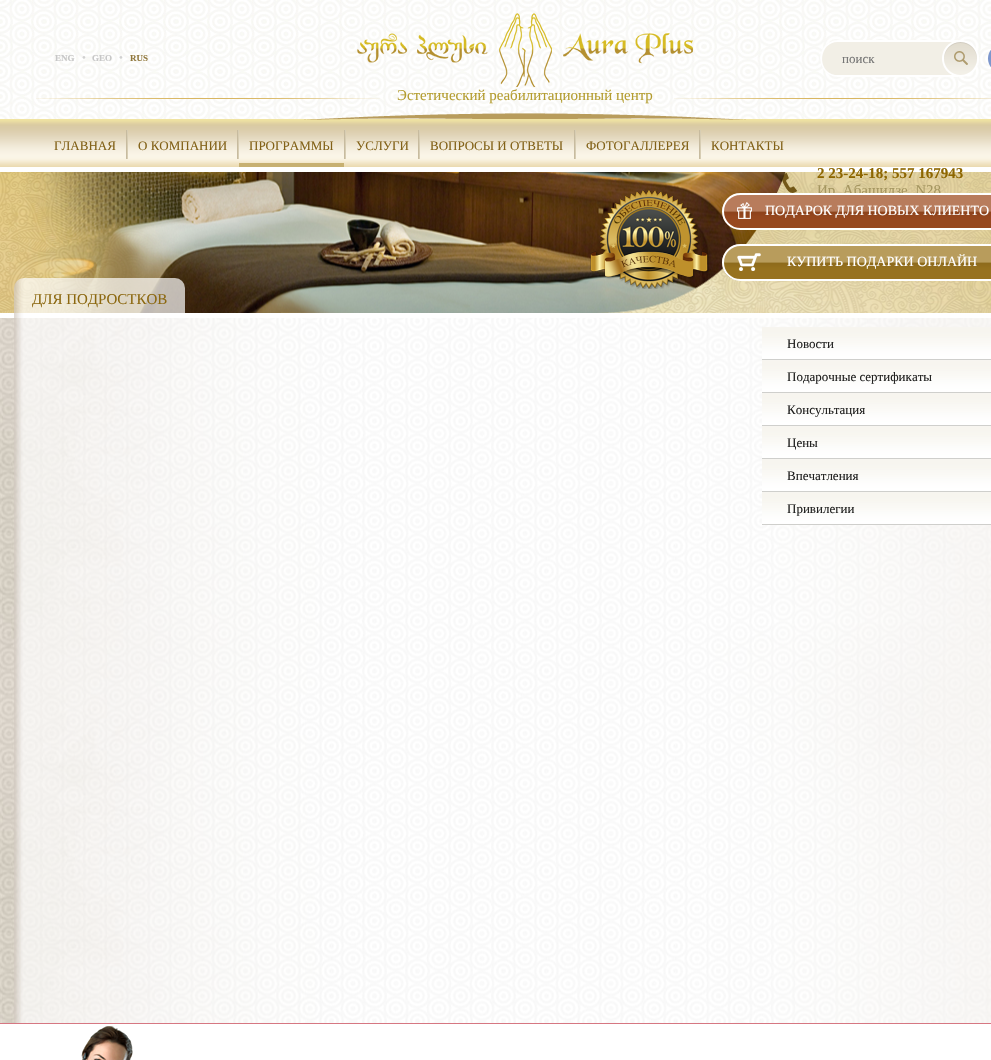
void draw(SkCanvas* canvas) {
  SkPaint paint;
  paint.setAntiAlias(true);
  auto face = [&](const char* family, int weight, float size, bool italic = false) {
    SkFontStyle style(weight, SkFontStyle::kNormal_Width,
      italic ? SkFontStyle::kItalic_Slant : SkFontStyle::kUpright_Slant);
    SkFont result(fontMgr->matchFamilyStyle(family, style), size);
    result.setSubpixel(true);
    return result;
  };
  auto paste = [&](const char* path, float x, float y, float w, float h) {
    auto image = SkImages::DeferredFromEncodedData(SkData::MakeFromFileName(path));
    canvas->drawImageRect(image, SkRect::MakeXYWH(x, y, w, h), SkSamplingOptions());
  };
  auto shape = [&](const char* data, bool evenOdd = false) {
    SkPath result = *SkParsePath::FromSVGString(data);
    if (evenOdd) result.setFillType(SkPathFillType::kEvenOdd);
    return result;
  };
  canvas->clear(0xffffffff);
  paste("img/1.png", 0, 0, 991, 119);
  paste("img/2.png", 36, 98, 955, 1);
  paste("img/3.png", 357, 13, 336, 74);
  paint.setColor(0xfff2efe6);
  canvas->drawPath(shape("M838.5 40H958V77H838.5C828.5 77 820 68.5 820 58.5C820 48.5 828.5 40 838.5 40Z"), paint);
  paint.setColor(0xffffffff);
  canvas->drawPath(shape("M838 40H958V77H838C828 77 820 69 820 58C820 48 828 40 838 40ZM838 42H958V75H835C816 71 819 42 838 42Z", true), paint);
  paste("img/4.png", 942, 40, 37, 37);
  paste("img/5.png", 988, 50, 3, 17);
  paste("img/7.png", 0, 119, 991, 48);
  paste("img/6.png", 304, 113, 442, 7);
  {
    const struct { float x, y, w, h; SkColor color; } items[] = {
      {126, 130, 1, 29, 0xffc7bb9f},
      {237, 130, 1, 29, 0xffc7bb9f},
      {127, 130, 1, 29, 0xffd7cdb3},
      {344, 130, 1, 29, 0xffc7bb9f},
      {238, 130, 1, 29, 0xffd7cdb3},
      {239, 163, 105, 4, 0xffc7b071},
      {418, 130, 1, 29, 0xffc7bb9f},
      {345, 130, 1, 29, 0xffd7cdb3},
      {574, 130, 1, 29, 0xffc7bb9f},
      {419, 130, 1, 29, 0xffd7cdb3},
      {699, 130, 1, 29, 0xffc7bb9f},
      {575, 130, 1, 29, 0xffd7cdb3},
      {700, 130, 1, 29, 0xffd7cdb3},
    };
    for (auto [x, y, w, h, color] : items) {
      paint.setColor(color);
      canvas->drawRect(SkRect::MakeXYWH(x, y, w, h), paint);
    }
  }
  paste("img/9.png", 0, 172, 991, 141);
  paste("img/8.png", 782, 173, 15, 20);
  paste("img/10.png", 26, 172, 760, 141);
  paste("img/11.png", 590, 189, 119, 100);
  paste("img/14.png", 722, 246, 269, 33);
  paint.setStroke(true);
  paint.setStrokeWidth(2);
  paint.setColor(0xffffffff);
  canvas->drawRoundRect(SkRect::MakeXYWH(723, 245, 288, 35), 17.5f, 17.5f, paint);
  paste("img/15.png", 737, 253, 24, 18);
  paste("img/16.png", 0, 318, 991, 705);
  paste("img/17.png", 14, 318, 977, 705);
  paste("img/18.png", 14, 278, 171, 40);
  paste("img/19.png", 762, 327, 229, 32);
  paint.setStroke(false);
  paint.setColor(0xffcfcfcc);
  canvas->drawRect(SkRect::MakeXYWH(762, 359, 229, 1), paint);
  paste("img/20.png", 762, 360, 229, 32);
  canvas->drawRect(SkRect::MakeXYWH(762, 392, 229, 1), paint);
  paste("img/21.png", 762, 393, 229, 32);
  canvas->drawRect(SkRect::MakeXYWH(762, 425, 229, 1), paint);
  paste("img/22.png", 762, 426, 229, 32);
  canvas->drawRect(SkRect::MakeXYWH(762, 458, 229, 1), paint);
  paste("img/23.png", 762, 459, 229, 32);
  canvas->drawRect(SkRect::MakeXYWH(762, 491, 229, 1), paint);
  paste("img/24.png", 762, 492, 229, 32);
  canvas->drawRect(SkRect::MakeXYWH(762, 524, 229, 1), paint);
  paint.setColor(0xffd67782);
  canvas->drawRect(SkRect::MakeXYWH(0, 1023, 991, 1), paint);
  paste("img/25.png", 81, 1026, 52, 34);
  auto f0 = face("Liberation Serif", 700, 9);
  paint.setColor(0xffc7c7c7);
  canvas->drawString("ENG", 55, 61, f0, paint);
  auto f1 = face("Liberation Serif", 400, 11);
  paint.setColor(0xffd1d1d1);
  canvas->drawString("•", 82, 61, f1, paint);
  paint.setColor(0xffc7c7c7);
  canvas->drawString("GEO", 92, 61, f0, paint);
  paint.setColor(0xffd1d1d1);
  canvas->drawString("•", 119, 61, f1, paint);
  paint.setColor(0xff91783c);
  canvas->drawString("RUS", 130, 61, f0, paint);
  auto f2 = face("Liberation Serif", 400, 13);
  paint.setColor(0xff757575);
  canvas->drawString("поиск", 842, 63, f2, paint);
  auto f3 = face("Liberation Serif", 400, 15);
  paint.setColor(0xffb49d30);
  canvas->drawString("Эстетический реабилитационный центр", 397, 100, f3, paint);
  paint.setColor(0xff826117);
  {
    const struct { const char* s; float x, y; } items[] = {
      {"ГЛАВНАЯ", 54, 150},
      {"О КОМПАНИИ", 138, 150},
      {"ПРОГРАММЫ", 249, 150},
      {"УСЛУГИ", 356, 150},
      {"ВОПРОСЫ И ОТВЕТЫ", 430, 150},
      {"ФОТОГАЛЛЕРЕЯ", 586, 150},
      {"КОНТАКТЫ", 711, 150},
    };
    for (auto [s, x, y] : items) {
      canvas->drawString(s, x, y, f2, paint);
    }
  }
  auto f4 = face("Liberation Serif", 700, 15);
  paint.setColor(0xff8d6600);
  canvas->drawString("2 23-24-18; 557 167943", 817, 178, f4, paint);
  paint.setColor(0xffa59660);
  canvas->drawString("Ир. Абашидзе, N28", 817, 195, f3, paint);
  paste("img/12.png", 722, 195, 269, 33);
  paint.setStroke(true);
  paint.setColor(0xffffffff);
  canvas->drawRoundRect(SkRect::MakeXYWH(723, 194, 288, 35), 17.5f, 17.5f, paint);
  paste("img/13.png", 737, 202, 15, 17);
  auto f5 = face("Liberation Serif", 400, 14);
  paint.setStroke(false);
  canvas->drawString("ПОДАРОК ДЛЯ НОВЫХ КЛИЕНТО", 765, 215, f5, paint);
  canvas->drawString("КУПИТЬ ПОДАРКИ ОНЛАЙН", 787, 266, f5, paint);
  paint.setColor(0xff8c6810);
  canvas->drawString("ДЛЯ ПОДРОСТКОВ", 32, 304, f3, paint);
  paint.setColor(0xff212120);
  {
    const struct { const char* s; float x, y; } items[] = {
      {"Новости", 787, 348},
      {"Подарочные сертификаты", 787, 381},
      {"Консультация", 787, 414},
      {"Цены", 787, 447},
      {"Впечатления", 787, 480},
      {"Привилегии", 787, 513},
    };
    for (auto [s, x, y] : items) {
      canvas->drawString(s, x, y, f2, paint);
    }
  }
}
